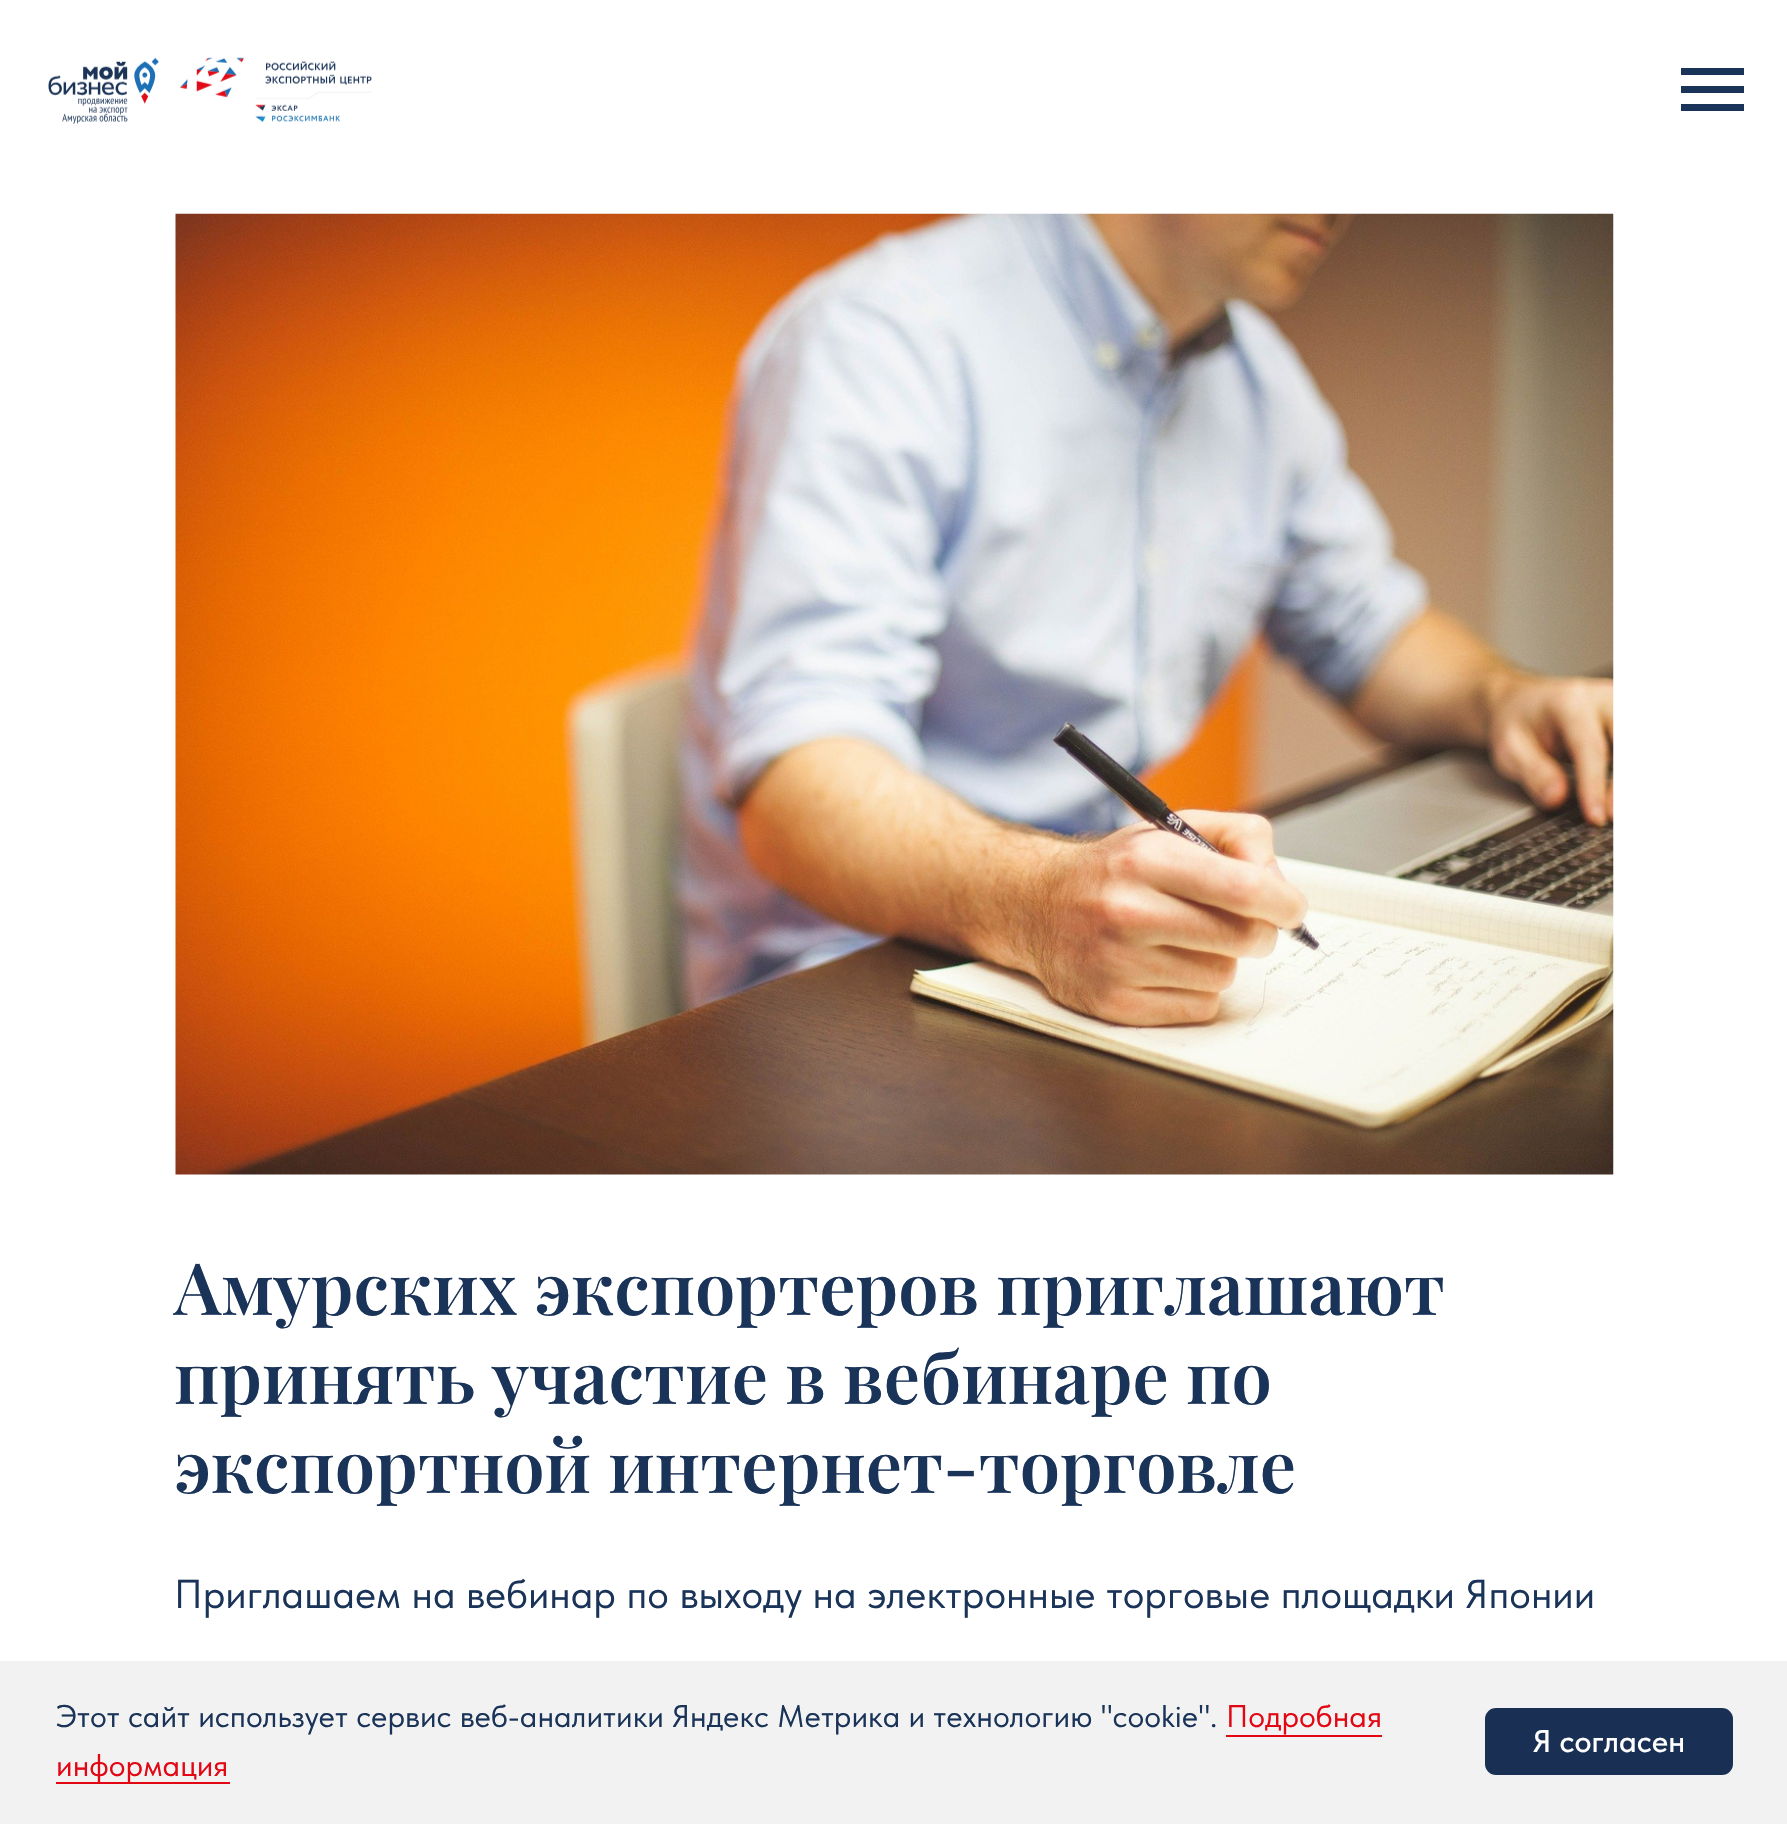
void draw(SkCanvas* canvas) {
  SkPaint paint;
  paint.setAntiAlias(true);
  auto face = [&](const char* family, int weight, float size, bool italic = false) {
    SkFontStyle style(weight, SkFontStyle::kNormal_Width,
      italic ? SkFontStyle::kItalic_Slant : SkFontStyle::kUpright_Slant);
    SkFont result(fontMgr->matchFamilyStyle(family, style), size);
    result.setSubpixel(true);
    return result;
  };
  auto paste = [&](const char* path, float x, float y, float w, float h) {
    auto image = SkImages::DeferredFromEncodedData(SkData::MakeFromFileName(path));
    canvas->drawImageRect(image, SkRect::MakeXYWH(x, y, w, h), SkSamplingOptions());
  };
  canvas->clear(0xffffffff);
  paste("img/1.png", 48, 57, 324, 67);
  {
    const struct { float x, y, w, h; SkColor color; } items[] = {
      {1681, 68, 63, 7, 0xff1a3358},
      {1681, 86, 63, 7, 0xff1a3358},
      {1681, 104, 63, 7, 0xff1a3358},
    };
    for (auto [x, y, w, h, color] : items) {
      paint.setColor(color);
      canvas->drawRect(SkRect::MakeXYWH(x, y, w, h), paint);
    }
  }
  paste("img/2.png", 175, 213, 1439, 962);
  {
    const struct { float x, y, w, h; SkColor color; } items[] = {
      {0, 1661, 1787, 163, 0xfff2f2f2},
      {1226, 1735, 156, 2, 0xffe30613},
      {56, 1782, 174, 2, 0xffe30613},
    };
    for (auto [x, y, w, h, color] : items) {
      paint.setColor(color);
      canvas->drawRect(SkRect::MakeXYWH(x, y, w, h), paint);
    }
  }
  paint.setColor(0xff193054);
  canvas->drawRoundRect(SkRect::MakeXYWH(1486, 1709, 246, 65), 10, 10, paint);
  paint.setStroke(true);
  paint.setStrokeWidth(2);
  canvas->drawRoundRect(SkRect::MakeXYWH(1486, 1709, 246, 65), 10, 10, paint);
  auto f0 = face("Playfair Display", 600, 72);
  paint.setStroke(false);
  paint.setColor(0xff1a3358);
  {
    const struct { const char* s; float x, y; } items[] = {
      {"Амурских экспортеров приглашают", 174, 1315},
      {"принять участие в вебинаре по", 174, 1404},
      {"экспортной интернет-торговле", 174, 1493},
    };
    for (auto [s, x, y] : items) {
      canvas->drawString(s, x, y, f0, paint);
    }
  }
  auto f1 = face("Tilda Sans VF", 400, 40.5f);
  canvas->drawString("Приглашаем на вебинар по выходу на электронные торговые площадки Японии", 174, 1608, f1, paint);
  auto f2 = face("Tilda Sans VF", 400, 31.5f);
  canvas->drawString("Этот сайт использует сервис веб-аналитики Яндекс Метрика и технологию \"cookie\".", 56, 1727, f2, paint);
  paint.setColor(0xffe30613);
  canvas->drawString("Подробная", 1226, 1727, f2, paint);
  canvas->drawString("информация", 56, 1776, f2, paint);
  auto f3 = face("Tilda Sans VF", 500, 31.5f);
  paint.setColor(0xffffffff);
  canvas->drawString("Я согласен", 1533, 1752, f3, paint);
}
